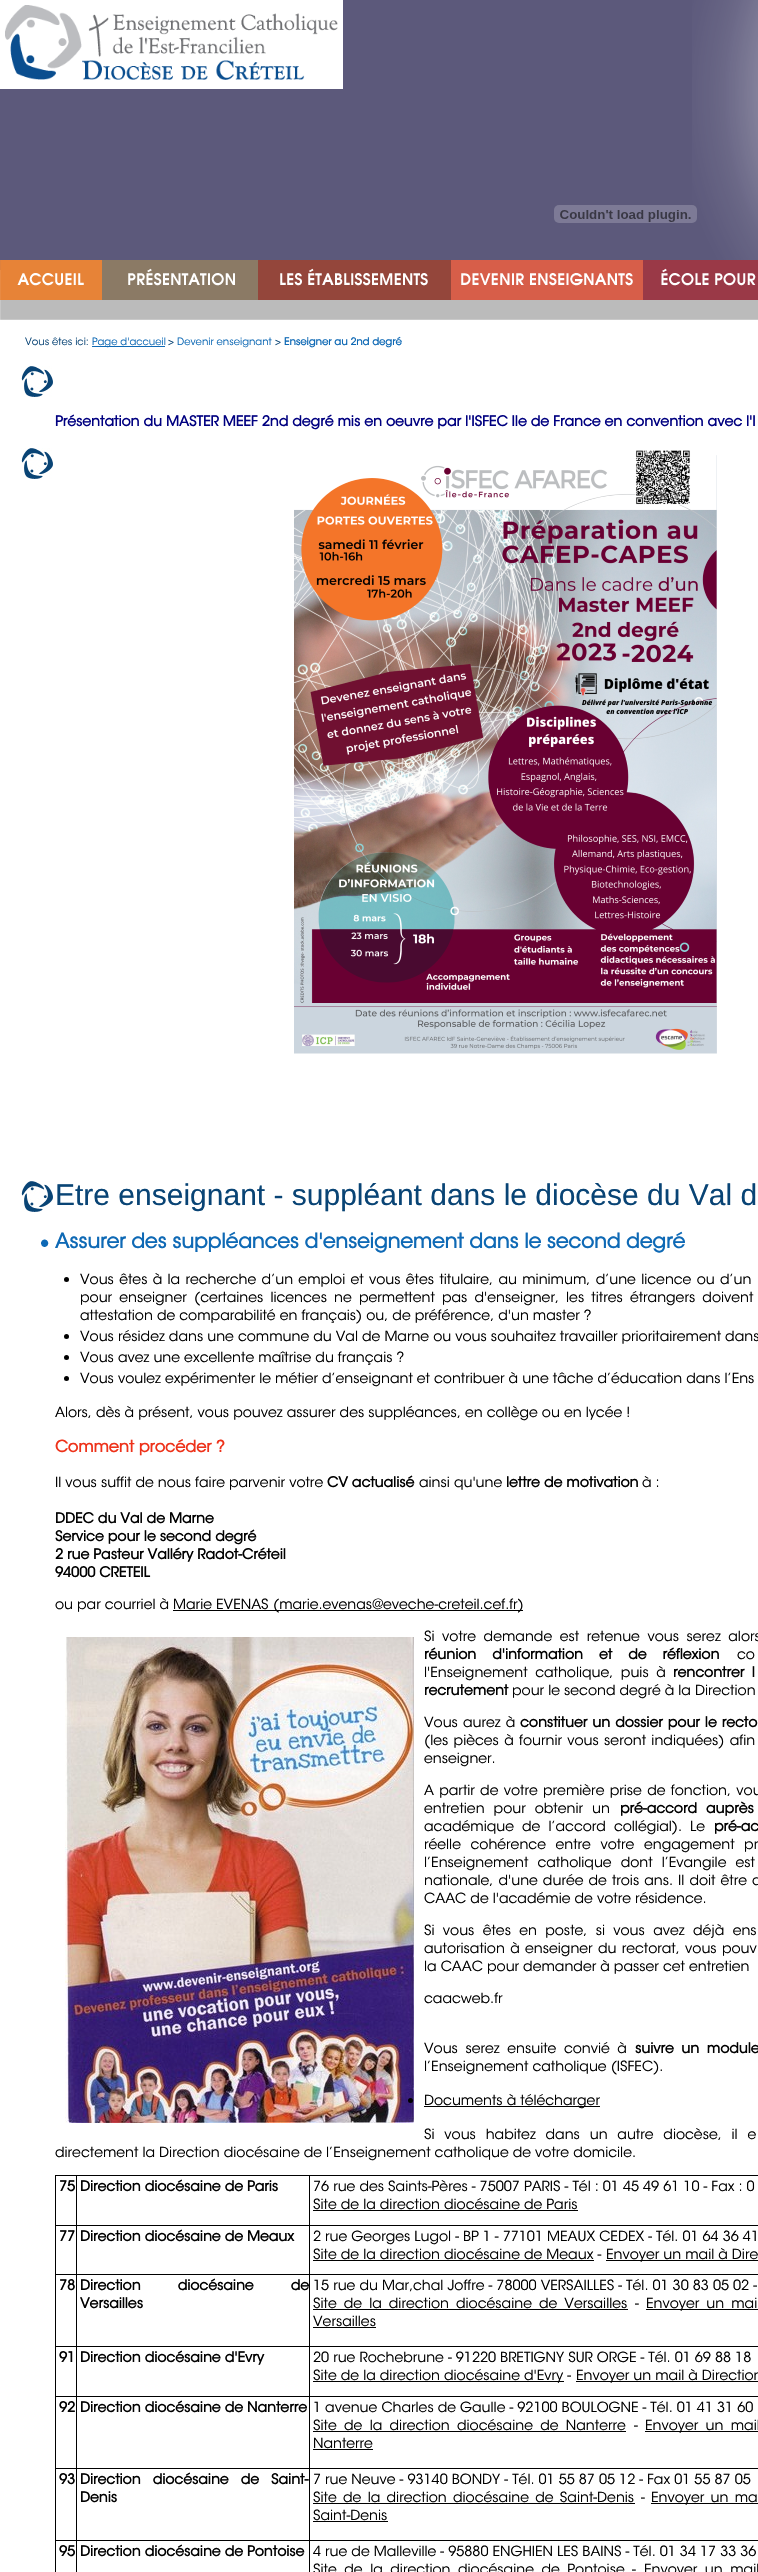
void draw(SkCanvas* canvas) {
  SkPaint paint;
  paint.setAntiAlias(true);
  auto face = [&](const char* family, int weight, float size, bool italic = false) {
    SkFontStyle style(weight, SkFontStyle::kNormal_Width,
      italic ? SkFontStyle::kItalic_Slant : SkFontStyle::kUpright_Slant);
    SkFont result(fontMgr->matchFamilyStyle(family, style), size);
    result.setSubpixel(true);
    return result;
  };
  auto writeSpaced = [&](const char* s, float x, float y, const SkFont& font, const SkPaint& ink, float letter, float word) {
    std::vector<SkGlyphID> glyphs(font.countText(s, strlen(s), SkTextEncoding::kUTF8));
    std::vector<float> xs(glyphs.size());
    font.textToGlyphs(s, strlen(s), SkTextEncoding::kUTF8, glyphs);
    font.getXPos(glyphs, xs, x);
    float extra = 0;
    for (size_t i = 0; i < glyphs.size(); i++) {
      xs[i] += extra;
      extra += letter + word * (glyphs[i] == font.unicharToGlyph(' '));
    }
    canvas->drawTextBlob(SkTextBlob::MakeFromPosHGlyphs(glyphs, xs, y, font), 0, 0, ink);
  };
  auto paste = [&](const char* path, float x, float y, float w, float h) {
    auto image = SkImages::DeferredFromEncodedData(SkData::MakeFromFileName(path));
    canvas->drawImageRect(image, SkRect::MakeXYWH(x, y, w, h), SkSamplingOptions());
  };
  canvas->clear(0xff5c597b);
  paint.setColor(0xffffffff);
  canvas->drawRect(SkRect::MakeXYWH(0, 0, 343, 89), paint);
  paste("img/1.png", 5, 5, 333, 75);
  paste("img/2.png", 554, 205, 143, 18);
  paste("img/3.png", 692, 0, 66, 260);
  canvas->drawRect(SkRect::MakeXYWH(0, 270, 758, 2302), paint);
  paste("img/4.png", 0, 260, 102, 60);
  paste("img/5.png", 102, 260, 156, 60);
  paste("img/6.png", 258, 260, 193, 60);
  paste("img/7.png", 451, 260, 192, 60);
  paste("img/8.png", 643, 260, 115, 60);
  paint.setColor(0xff0e69b5);
  canvas->drawRect(SkRect::MakeXYWH(92, 346, 73, 1), paint);
  paste("img/9.png", 21, 366, 32, 31);
  paste("img/9.png", 21, 448, 32, 31);
  paste("img/10.png", 294, 450, 423, 604);
  paste("img/9.png", 21, 1181, 32, 31);
  paste("img/11.png", 41, 1239, 8, 8);
  paint.setColor(0xff000000);
  canvas->drawCircle(66.5f, 1279.5f, 2.5f, paint);
  canvas->drawCircle(66.5f, 1336.5f, 2.5f, paint);
  canvas->drawCircle(66.5f, 1357.5f, 2.5f, paint);
  canvas->drawCircle(66.5f, 1378.5f, 2.5f, paint);
  canvas->drawRect(SkRect::MakeXYWH(173, 1610, 350, 1), paint);
  paste("img/12.png", 65, 1637, 349, 486);
  canvas->drawCircle(410.5f, 2100.5f, 2.5f, paint);
  {
    const struct { float x, y, w, h; SkColor color; } items[] = {
      {424, 2106, 176, 1, 0xff000000},
      {55, 2175, 703, 1, 0xff000000},
      {55, 2175, 1, 397, 0xff000000},
      {309, 2225, 449, 1, 0xff000000},
      {309, 2274, 449, 1, 0xff000000},
      {309, 2346, 449, 1, 0xff000000},
      {309, 2396, 449, 1, 0xff000000},
      {309, 2468, 449, 1, 0xff000000},
      {309, 2540, 449, 1, 0xff000000},
      {309, 2540, 1, 32, 0xff000000},
      {76, 2540, 234, 1, 0xff000000},
      {309, 2468, 1, 73, 0xff000000},
      {76, 2468, 234, 1, 0xff000000},
      {309, 2396, 1, 73, 0xff000000},
      {76, 2396, 234, 1, 0xff000000},
      {309, 2346, 1, 51, 0xff000000},
      {76, 2346, 234, 1, 0xff000000},
      {309, 2274, 1, 73, 0xff000000},
      {76, 2274, 234, 1, 0xff000000},
      {309, 2225, 1, 50, 0xff000000},
      {76, 2225, 234, 1, 0xff000000},
      {76, 2540, 1, 32, 0xff000000},
      {55, 2540, 22, 1, 0xff000000},
      {76, 2468, 1, 73, 0xff000000},
      {55, 2468, 22, 1, 0xff000000},
      {76, 2396, 1, 73, 0xff000000},
      {55, 2396, 22, 1, 0xff000000},
      {76, 2346, 1, 51, 0xff000000},
      {55, 2346, 22, 1, 0xff000000},
      {76, 2274, 1, 73, 0xff000000},
      {55, 2274, 22, 1, 0xff000000},
      {76, 2225, 1, 50, 0xff000000},
      {55, 2225, 22, 1, 0xff000000},
      {76, 2175, 1, 51, 0xff000000},
      {309, 2175, 1, 51, 0xff000000},
      {313, 2210, 265, 1, 0xff000000},
      {313, 2260, 281, 1, 0xff000000},
      {606, 2260, 152, 1, 0xff000000},
      {313, 2309, 315, 1, 0xff000000},
      {646, 2309, 112, 1, 0xff000000},
      {313, 2327, 63, 1, 0xff000000},
      {313, 2381, 251, 1, 0xff000000},
      {576, 2381, 182, 1, 0xff000000},
      {313, 2431, 313, 1, 0xff000000},
      {645, 2431, 113, 1, 0xff000000},
      {313, 2449, 60, 1, 0xff000000},
      {313, 2503, 322, 1, 0xff000000},
      {651, 2503, 107, 1, 0xff000000},
      {313, 2521, 75, 1, 0xff000000},
    };
    for (auto [x, y, w, h, color] : items) {
      paint.setColor(color);
      canvas->drawRect(SkRect::MakeXYWH(x, y, w, h), paint);
    }
  }
  auto f0 = face("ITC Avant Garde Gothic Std", 300, 10);
  paint.setColor(0xff094475);
  canvas->drawString("Vous êtes ici:", 25, 345, f0, paint);
  paint.setColor(0xff0e69b5);
  canvas->drawString("Page d'accueil", 92, 345, f0, paint);
  paint.setColor(0xff094475);
  canvas->drawString(">", 168, 345, f0, paint);
  paint.setColor(0xff0e69b5);
  canvas->drawString("Devenir enseignant", 177, 345, f0, paint);
  paint.setColor(0xff094475);
  canvas->drawString(">", 275, 345, f0, paint);
  auto f1 = face("ITC Avant Garde Gothic Std", 700, 10);
  paint.setColor(0xff0e69b5);
  canvas->drawString("Enseigner au 2nd degré", 284, 345, f1, paint);
  auto f2 = face("ITC Avant Garde Gothic Std", 700, 14);
  paint.setColor(0xff000080);
  canvas->drawString("Présentation du MASTER MEEF 2nd degré mis en oeuvre par l'ISFEC Ile de France en convention avec l'I", 55, 426, f2, paint);
  auto f3 = face("Liberation Sans", 400, 30);
  paint.setColor(0xff094475);
  canvas->drawString("Etre enseignant - suppléant dans le diocèse du Val d", 55, 1205, f3, paint);
  auto f4 = face("ITC Avant Garde Gothic Std", 700, 20);
  paint.setColor(0xff0e69b5);
  canvas->drawString("Assurer des suppléances d'enseignement dans le second degré", 55, 1248, f4, paint);
  auto f5 = face("ITC Avant Garde Gothic Std", 300, 14);
  paint.setColor(0xff000000);
  writeSpaced("Vous êtes à la recherche d’un emploi et vous êtes titulaire, au minimum, d’une licence ou d’un", 80, 1284, f5, paint, 0, 1.25f);
  writeSpaced("pour enseigner (certaines licences ne permettent pas d'enseigner, les titres étrangers doivent", 80, 1302, f5, paint, 0, 3.1f);
  {
    const struct { const char* s; float x, y; } items[] = {
      {"attestation de comparabilité en français) ou, de préférence, d'un master ?", 80, 1320},
      {"Vous résidez dans une commune du Val de Marne ou vous souhaitez travailler prioritairement dans", 80, 1341},
      {"Vous avez une excellente maîtrise du français ?", 80, 1362},
      {"Vous voulez expérimenter le métier d’enseignant et contribuer à une tâche d’éducation dans l’Ens", 80, 1383},
      {"Alors, dès à présent, vous pouvez assurer des suppléances, en collège ou en lycée !", 55, 1417},
    };
    for (auto [s, x, y] : items) {
      canvas->drawString(s, x, y, f5, paint);
    }
  }
  auto f6 = face("ITC Avant Garde Gothic Std", 700, 16);
  paint.setColor(0xffee321a);
  canvas->drawString("Comment procéder ?", 55, 1452, f6, paint);
  paint.setColor(0xff000000);
  canvas->drawString("Il vous suffit de nous faire parvenir votre", 55, 1487, f5, paint);
  canvas->drawString("CV actualisé", 327, 1487, f2, paint);
  canvas->drawString("ainsi qu'une", 419, 1487, f5, paint);
  canvas->drawString("lettre de motivation", 506, 1487, f2, paint);
  canvas->drawString("à :", 642, 1487, f5, paint);
  {
    const struct { const char* s; float x, y; } items[] = {
      {"DDEC du Val de Marne", 55, 1523},
      {"Service pour le second degré", 55, 1541},
      {"2 rue Pasteur Valléry Radot-Créteil", 55, 1559},
      {"94000 CRETEIL", 55, 1577},
    };
    for (auto [s, x, y] : items) {
      canvas->drawString(s, x, y, f2, paint);
    }
  }
  canvas->drawString("ou par courriel à Marie EVENAS", 55, 1609, f5, paint);
  canvas->drawString("(marie.evenas@eveche-creteil.cef.fr)", 273, 1609, f5, paint);
  writeSpaced("Si votre demande est retenue vous serez alors", 424, 1641, f5, paint, 0, 3.5f);
  writeSpaced("réunion d'information et de réflexion", 424, 1659, f2, paint, 0, 12);
  writeSpaced("co", 737, 1659, f5, paint, 0, 12);
  writeSpaced("l'Enseignement catholique, puis à", 424, 1677, f5, paint, 0, 3.5f);
  writeSpaced("rencontrer l", 673, 1677, f2, paint, 0, 3.5f);
  canvas->drawString("recrutement", 424, 1695, f2, paint);
  canvas->drawString("pour le second degré à la Direction", 512, 1695, f5, paint);
  writeSpaced("Vous aurez à", 424, 1727, f5, paint, 0, 1);
  writeSpaced("constituer un dossier pour le recto", 520, 1727, f2, paint, 0, 1);
  writeSpaced("(les pièces à fournir vous seront indiquées) afin", 424, 1745, f5, paint, 0, 1.25f);
  canvas->drawString("enseigner.", 424, 1763, f5, paint);
  writeSpaced("A partir de votre première prise de fonction, vou", 424, 1795, f5, paint, 0, 1.25f);
  writeSpaced("entretien pour obtenir un", 424, 1813, f5, paint, 0, 5);
  writeSpaced("pré-accord auprès", 620, 1813, f2, paint, 0, 5);
  writeSpaced("académique de l’accord collégial). Le", 424, 1831, f5, paint, 0, 4);
  canvas->drawString("pré-ac", 714, 1831, f2, paint);
  writeSpaced("réelle cohérence entre votre engagement pr", 424, 1849, f5, paint, 0, 5.5f);
  writeSpaced("l’Enseignement catholique dont l’Evangile est", 424, 1867, f5, paint, 0, 5);
  writeSpaced("nationale, d'une durée de trois ans. Il doit être d", 424, 1885, f5, paint, 0, 1);
  canvas->drawString("CAAC de l'académie de votre résidence.", 424, 1903, f5, paint);
  writeSpaced("Si vous êtes en poste, si vous avez déjà ens", 424, 1935, f5, paint, 0, 4.25f);
  writeSpaced("autorisation à enseigner du rectorat, vous pouv", 424, 1953, f5, paint, 0, 1.25f);
  canvas->drawString("la CAAC pour demander à passer cet entretien", 424, 1971, f5, paint);
  canvas->drawString("caacweb.fr", 424, 2003, f5, paint);
  writeSpaced("Vous serez ensuite convié à", 424, 2053, f5, paint, 0, 3.5f);
  writeSpaced("suivre un module", 635, 2053, f2, paint, 0, 3.5f);
  canvas->drawString("l’Enseignement catholique (ISFEC).", 424, 2071, f5, paint);
  canvas->drawString("Documents à télécharger", 424, 2105, f5, paint);
  writeSpaced("Si vous habitez dans un autre diocèse, il e", 424, 2139, f5, paint, 0, 5.75f);
  canvas->drawString("directement la Direction diocésaine de l’Enseignement catholique de votre domicile.", 55, 2157, f5, paint);
  canvas->drawString("75", 59, 2191, f2, paint);
  canvas->drawString("Direction diocésaine de Paris", 80, 2191, f2, paint);
  canvas->drawString("76 rue des Saints-Pères - 75007 PARIS - Tél : 01 45 49 61 10 - Fax : 0", 313, 2191, f5, paint);
  canvas->drawString("Site de la direction diocésaine de Paris", 313, 2209, f5, paint);
  canvas->drawString("77", 59, 2241, f2, paint);
  canvas->drawString("Direction diocésaine de Meaux", 80, 2241, f2, paint);
  {
    const struct { const char* s; float x, y; } items[] = {
      {"2 rue Georges Lugol - BP 1 - 77101 MEAUX CEDEX - Tél. 01 64 36 41", 313, 2241},
      {"Site de la direction diocésaine de Meaux -", 313, 2259},
      {"Envoyer un mail à Dire", 606, 2259},
    };
    for (auto [s, x, y] : items) {
      canvas->drawString(s, x, y, f5, paint);
    }
  }
  canvas->drawString("78", 59, 2290, f2, paint);
  writeSpaced("Direction diocésaine de", 80, 2290, f2, paint, 0, 33);
  canvas->drawString("Versailles", 80, 2308, f2, paint);
  canvas->drawString("15 rue du Mar‚chal Joffre - 78000 VERSAILLES - Tél. 01 30 83 05 02 -", 313, 2290, f5, paint);
  writeSpaced("Site de la direction diocésaine de Versailles", 313, 2308, f5, paint, 0, 3);
  canvas->drawString("-", 635, 2308, f5, paint);
  writeSpaced("Envoyer un mai", 646, 2308, f5, paint, 0, 3);
  canvas->drawString("Versailles", 313, 2326, f5, paint);
  canvas->drawString("91", 59, 2362, f2, paint);
  canvas->drawString("Direction diocésaine d'Evry", 80, 2362, f2, paint);
  {
    const struct { const char* s; float x, y; } items[] = {
      {"20 rue Rochebrune - 91220 BRETIGNY SUR ORGE - Tél. 01 69 88 18", 313, 2362},
      {"Site de la direction diocésaine d'Evry -", 313, 2380},
      {"Envoyer un mail à Direction", 576, 2380},
    };
    for (auto [s, x, y] : items) {
      canvas->drawString(s, x, y, f5, paint);
    }
  }
  canvas->drawString("92", 59, 2412, f2, paint);
  canvas->drawString("Direction diocésaine de Nanterre", 80, 2412, f2, paint);
  canvas->drawString("1 avenue Charles de Gaulle - 92100 BOULOGNE - Tél. 01 41 31 60", 313, 2412, f5, paint);
  writeSpaced("Site de la direction diocésaine de Nanterre", 313, 2430, f5, paint, 0, 3.25f);
  canvas->drawString("-", 634, 2430, f5, paint);
  writeSpaced("Envoyer un mail", 645, 2430, f5, paint, 0, 3.25f);
  canvas->drawString("Nanterre", 313, 2448, f5, paint);
  canvas->drawString("93", 59, 2484, f2, paint);
  writeSpaced("Direction diocésaine de Saint-", 80, 2484, f2, paint, 0, 8);
  canvas->drawString("Denis", 80, 2502, f2, paint);
  canvas->drawString("7 rue Neuve - 93140 BONDY - Tél. 01 55 87 05 12 - Fax 01 55 87 05", 313, 2484, f5, paint);
  writeSpaced("Site de la direction diocésaine de Saint-Denis", 313, 2502, f5, paint, 0, 2.25f);
  canvas->drawString("-", 641, 2502, f5, paint);
  writeSpaced("Envoyer un ma", 651, 2502, f5, paint, 0, 2.25f);
  canvas->drawString("Saint-Denis", 313, 2520, f5, paint);
  canvas->drawString("95", 59, 2556, f2, paint);
  canvas->drawString("Direction diocésaine de Pontoise", 80, 2556, f2, paint);
  canvas->drawString("4 rue de Malleville - 95880 ENGHIEN LES BAINS - Tél. 01 34 17 33 36", 313, 2556, f5, paint);
  writeSpaced("Site de la direction diocésaine de Pontoise", 313, 2574, f5, paint, 0, 3.5f);
  canvas->drawString("-", 632, 2574, f5, paint);
  writeSpaced("Envoyer un mail", 644, 2574, f5, paint, 0, 3.5f);
}
